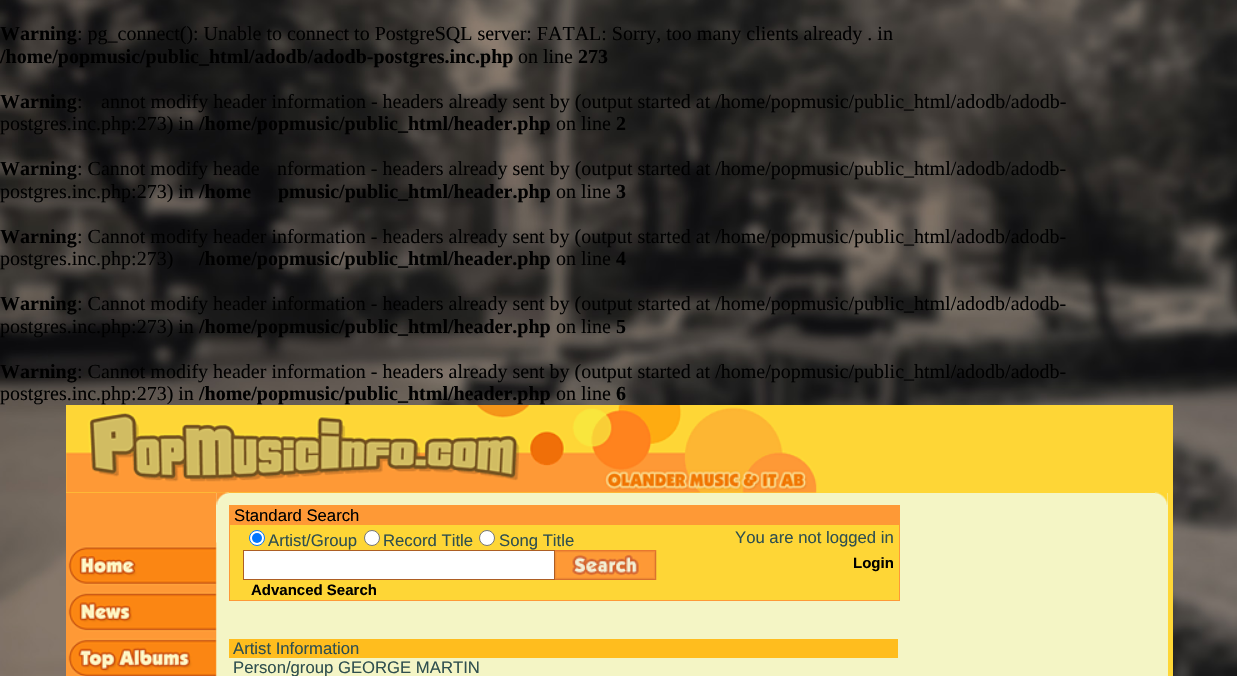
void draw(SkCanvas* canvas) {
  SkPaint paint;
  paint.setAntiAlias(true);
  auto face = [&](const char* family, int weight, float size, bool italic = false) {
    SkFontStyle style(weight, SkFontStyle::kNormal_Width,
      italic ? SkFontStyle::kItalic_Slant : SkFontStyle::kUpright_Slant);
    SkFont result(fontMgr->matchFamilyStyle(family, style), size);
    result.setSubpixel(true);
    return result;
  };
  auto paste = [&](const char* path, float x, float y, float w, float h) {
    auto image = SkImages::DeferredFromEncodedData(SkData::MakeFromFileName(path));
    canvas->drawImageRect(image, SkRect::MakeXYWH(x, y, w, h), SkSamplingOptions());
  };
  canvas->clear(0xffffffff);
  paste("img/1.png", 0, 0, 1237, 676);
  paint.setColor(0xfff4f5c5);
  canvas->drawRect(SkRect::MakeXYWH(216, 493, 952, 183), paint);
  paint.setColor(0xfffed636);
  canvas->drawRect(SkRect::MakeXYWH(66, 405, 1107, 88), paint);
  paste("img/2.png", 66, 405, 751, 88);
  paint.setColor(0xfffe9936);
  canvas->drawRect(SkRect::MakeXYWH(66, 493, 150, 183), paint);
  paste("img/3.png", 68, 542, 149, 47);
  paste("img/4.png", 68, 588, 149, 47);
  paste("img/5.png", 68, 635, 149, 41);
  paste("img/6.png", 216, 492, 13, 13);
  paint.setStroke(true);
  paint.setStrokeWidth(1);
  canvas->drawRect(SkRect::MakeXYWH(229.5f, 505.5f, 670, 95), paint);
  paint.setStroke(false);
  canvas->drawRect(SkRect::MakeXYWH(230, 506, 669, 19), paint);
  paint.setColor(0xfffed636);
  canvas->drawRect(SkRect::MakeXYWH(230, 525, 669, 75), paint);
  paint.setColor(0xffffffff);
  canvas->drawCircle(257, 538, 7.5f, paint);
  paint.setStroke(true);
  paint.setColor(0xff0075ff);
  canvas->drawCircle(257, 538, 7.5f, paint);
  paint.setStroke(false);
  canvas->drawCircle(257, 538, 5, paint);
  paint.setColor(0xffffffff);
  canvas->drawCircle(372, 538, 7.5f, paint);
  paint.setStroke(true);
  paint.setColor(0xff767676);
  canvas->drawCircle(372, 538, 7.5f, paint);
  paint.setStroke(false);
  paint.setColor(0xffffffff);
  canvas->drawCircle(487, 538, 7.5f, paint);
  paint.setStroke(true);
  paint.setColor(0xff767676);
  canvas->drawCircle(487, 538, 7.5f, paint);
  paint.setStroke(false);
  paint.setColor(0xffffffff);
  canvas->drawRect(SkRect::MakeXYWH(243.5f, 550.5f, 311, 29), paint);
  paint.setStroke(true);
  paint.setColor(0xffad5e24);
  canvas->drawRect(SkRect::MakeXYWH(243.5f, 550.5f, 311, 29), paint);
  paste("img/7.png", 555, 550, 102, 30);
  paint.setStroke(false);
  paint.setColor(0xffffbd1e);
  canvas->drawRect(SkRect::MakeXYWH(229, 639, 669, 19), paint);
  paste("img/8.png", 1155, 492, 13, 13);
  paint.setColor(0xfffed636);
  canvas->drawRect(SkRect::MakeXYWH(1168, 493, 5, 183), paint);
  auto f0 = face("Liberation Serif", 700, 20);
  paint.setColor(0xff000000);
  canvas->drawString("Warning", 0, 40, f0, paint);
  auto f1 = face("Liberation Serif", 400, 20);
  canvas->drawString(": pg_connect(): Unable to connect to PostgreSQL server: FATAL: Sorry, too many clients already . in", 77, 40, f1, paint);
  canvas->drawString("/home/popmusic/public_html/adodb/adodb-postgres.inc.php", 0, 63, f0, paint);
  canvas->drawString("on line", 518, 63, f1, paint);
  canvas->drawString("273", 578, 63, f0, paint);
  canvas->drawString("Warning", 0, 108, f0, paint);
  {
    const struct { const char* s; float x, y; } items[] = {
      {":", 77, 108},
      {"annot modify header information - headers already sent by (output started at /home/popmusic/public_html/adodb/adodb-", 101, 108},
      {"postgres.inc.php:273) in", 0, 130},
    };
    for (auto [s, x, y] : items) {
      canvas->drawString(s, x, y, f1, paint);
    }
  }
  canvas->drawString("/home/popmusic/public_html/header.php", 199, 130, f0, paint);
  canvas->drawString("on line", 556, 130, f1, paint);
  canvas->drawString("2", 616, 130, f0, paint);
  canvas->drawString("Warning", 0, 175, f0, paint);
  {
    const struct { const char* s; float x, y; } items[] = {
      {": Cannot modify heade", 77, 175},
      {"nformation - headers already sent by (output started at /home/popmusic/public_html/adodb/adodb-", 277, 175},
      {"postgres.inc.php:273) in", 0, 198},
    };
    for (auto [s, x, y] : items) {
      canvas->drawString(s, x, y, f1, paint);
    }
  }
  canvas->drawString("/home", 199, 198, f0, paint);
  canvas->drawString("pmusic/public_html/header.php", 278, 198, f0, paint);
  canvas->drawString("on line", 556, 198, f1, paint);
  canvas->drawString("3", 616, 198, f0, paint);
  canvas->drawString("Warning", 0, 243, f0, paint);
  canvas->drawString(": Cannot modify header information - headers already sent by (output started at /home/popmusic/public_html/adodb/adodb-", 77, 243, f1, paint);
  canvas->drawString("postgres.inc.php:273)", 0, 265, f1, paint);
  canvas->drawString("/home/popmusic/public_html/header.php", 199, 265, f0, paint);
  canvas->drawString("on line", 556, 265, f1, paint);
  canvas->drawString("4", 616, 265, f0, paint);
  canvas->drawString("Warning", 0, 310, f0, paint);
  canvas->drawString(": Cannot modify header information - headers already sent by (output started at /home/popmusic/public_html/adodb/adodb-", 77, 310, f1, paint);
  canvas->drawString("postgres.inc.php:273) in", 0, 333, f1, paint);
  canvas->drawString("/home/popmusic/public_html/header.php", 199, 333, f0, paint);
  canvas->drawString("on line", 556, 333, f1, paint);
  canvas->drawString("5", 616, 333, f0, paint);
  canvas->drawString("Warning", 0, 378, f0, paint);
  canvas->drawString(": Cannot modify header information - headers already sent by (output started at /home/popmusic/public_html/adodb/adodb-", 77, 378, f1, paint);
  canvas->drawString("postgres.inc.php:273) in", 0, 400, f1, paint);
  canvas->drawString("/home/popmusic/public_html/header.php", 199, 400, f0, paint);
  canvas->drawString("on line", 556, 400, f1, paint);
  canvas->drawString("6", 616, 400, f0, paint);
  auto f2 = face("Liberation Sans", 400, 16.7f);
  canvas->drawString("Standard Search", 234, 521, f2, paint);
  paint.setColor(0xff2f4f4f);
  {
    const struct { const char* s; float x, y; } items[] = {
      {"Artist/Group", 268, 546},
      {"Record Title", 383, 546},
      {"Song Title", 499, 546},
    };
    for (auto [s, x, y] : items) {
      canvas->drawString(s, x, y, f2, paint);
    }
  }
  auto f3 = face("Liberation Sans", 700, 15);
  paint.setColor(0xff000000);
  canvas->drawString("Advanced Search", 251, 595, f3, paint);
  paint.setColor(0xff2f4f4f);
  canvas->drawString("You are not logged in", 735, 543, f2, paint);
  paint.setColor(0xff000000);
  canvas->drawString("Login", 853, 568, f3, paint);
  paint.setColor(0xff2f4f4f);
  canvas->drawString("Artist Information", 233, 654, f2, paint);
  canvas->drawString("Person/group GEORGE MARTIN", 233, 673, f2, paint);
}
